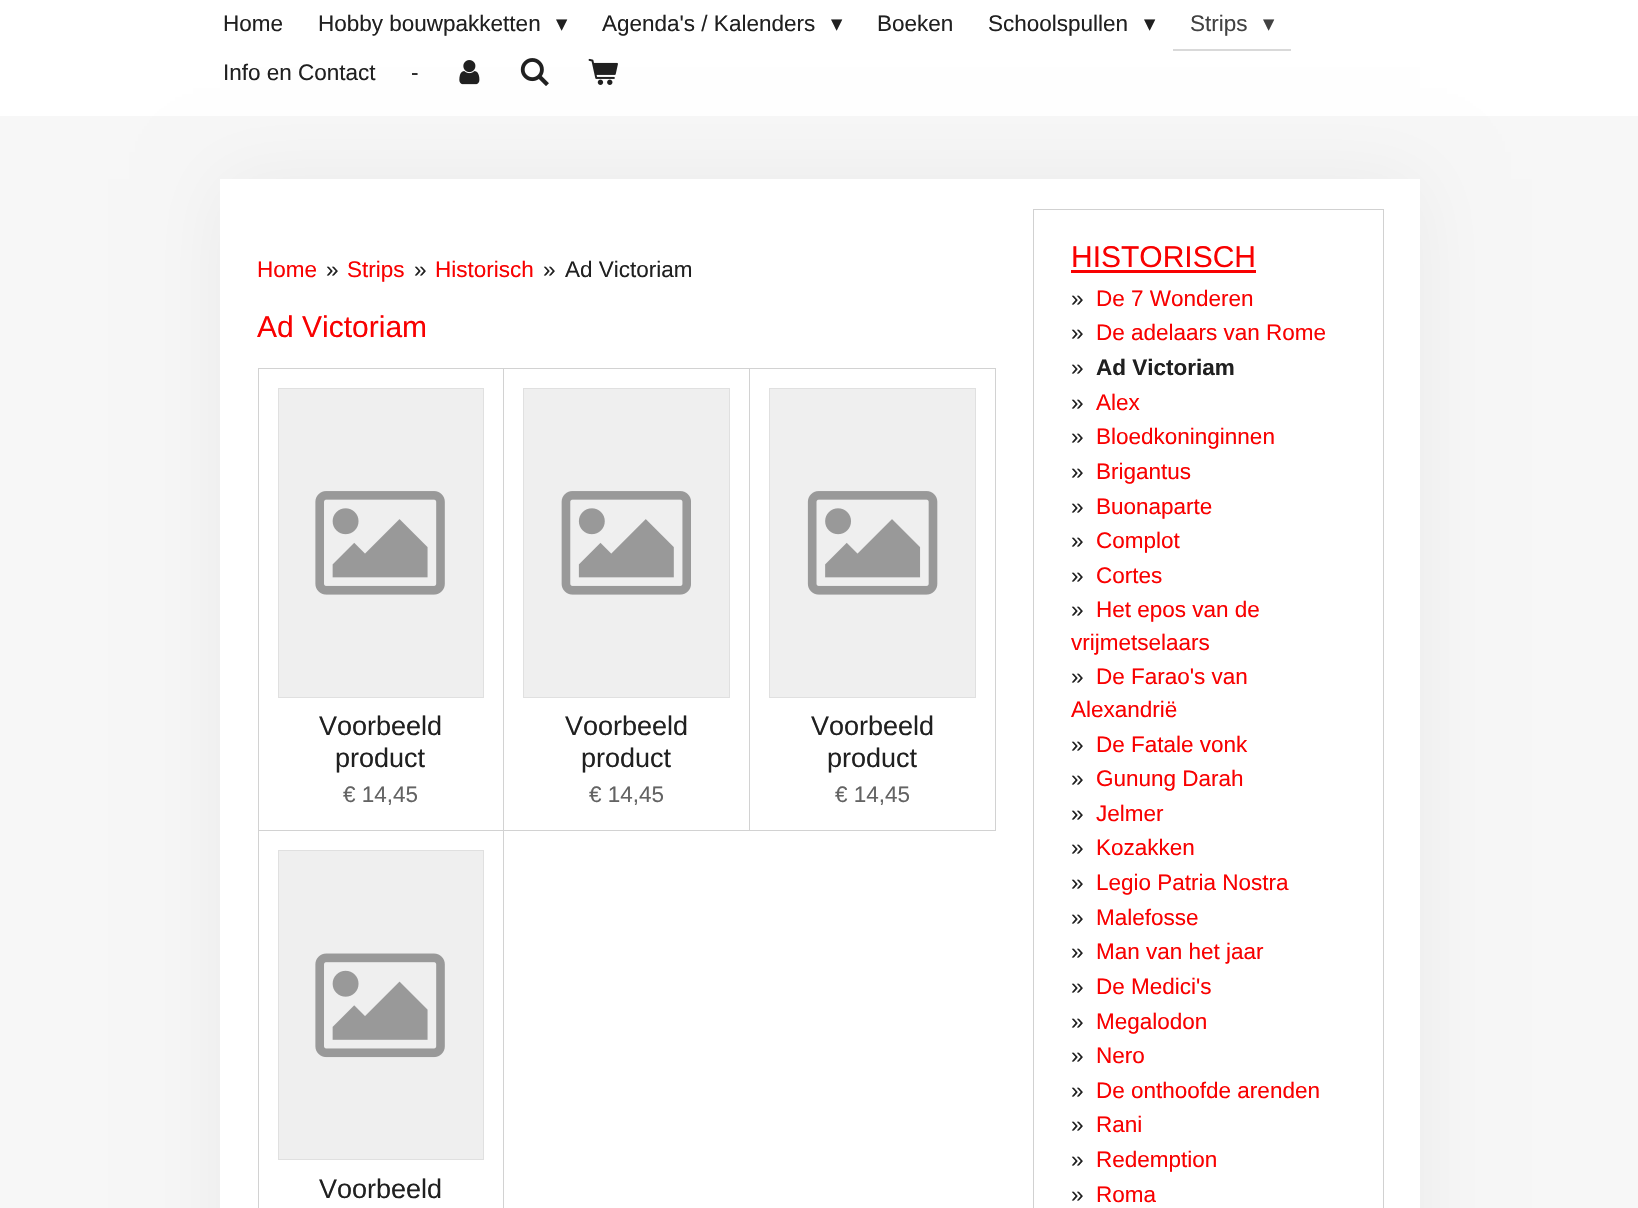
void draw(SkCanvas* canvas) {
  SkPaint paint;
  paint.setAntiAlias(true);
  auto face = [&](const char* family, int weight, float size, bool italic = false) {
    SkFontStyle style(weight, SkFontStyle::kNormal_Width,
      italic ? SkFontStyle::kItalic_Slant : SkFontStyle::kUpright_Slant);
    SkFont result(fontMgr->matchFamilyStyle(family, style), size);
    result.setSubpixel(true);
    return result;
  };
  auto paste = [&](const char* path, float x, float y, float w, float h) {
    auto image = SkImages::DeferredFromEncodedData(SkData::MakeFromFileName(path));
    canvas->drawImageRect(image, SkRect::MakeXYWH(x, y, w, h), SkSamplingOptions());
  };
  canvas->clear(0xfff7f7f7);
  paint.setColor(0xffffffff);
  canvas->drawRect(SkRect::MakeXYWH(0, 0, 1638, 116), paint);
  paint.setColor(0xffd9d9d9);
  canvas->drawRect(SkRect::MakeXYWH(1173, 49, 118, 2), paint);
  paste("img/1.png", 459, 60, 21, 25);
  paste("img/2.png", 520, 58, 29, 28);
  paste("img/3.png", 588, 58, 30, 27);
  paint.setColor(0x0d000000);
  paint.setMaskFilter(SkMaskFilter::MakeBlur(kNormal_SkBlurStyle, 37.5f));
  canvas->drawRect(SkRect::MakeXYWH(220, 179, 1200, 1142), paint);
  paint.setMaskFilter(nullptr);
  paint.setColor(0xffffffff);
  canvas->drawRect(SkRect::MakeXYWH(220, 179, 1200, 1029), paint);
  paint.setStroke(true);
  paint.setStrokeWidth(1);
  paint.setColor(0xffd2d2d2);
  canvas->drawRect(SkRect::MakeXYWH(258.5f, 368.5f, 245, 462), paint);
  paint.setStroke(false);
  paint.setColor(0xffefefef);
  canvas->drawRect(SkRect::MakeXYWH(278.5f, 388.5f, 205, 309), paint);
  paint.setStroke(true);
  paint.setColor(0xffe0e0e0);
  canvas->drawRect(SkRect::MakeXYWH(278.5f, 388.5f, 205, 309), paint);
  paste("img/4.png", 315, 491, 130, 104);
  paint.setColor(0xffd2d2d2);
  canvas->drawRect(SkRect::MakeXYWH(503.5f, 368.5f, 246, 462), paint);
  paint.setStroke(false);
  paint.setColor(0xffefefef);
  canvas->drawRect(SkRect::MakeXYWH(523.5f, 388.5f, 206, 309), paint);
  paint.setStroke(true);
  paint.setColor(0xffe0e0e0);
  canvas->drawRect(SkRect::MakeXYWH(523.5f, 388.5f, 206, 309), paint);
  paste("img/5.png", 561, 491, 130, 104);
  paint.setColor(0xffd2d2d2);
  canvas->drawRect(SkRect::MakeXYWH(749.5f, 368.5f, 246, 462), paint);
  paint.setStroke(false);
  paint.setColor(0xffefefef);
  canvas->drawRect(SkRect::MakeXYWH(769.5f, 388.5f, 206, 309), paint);
  paint.setStroke(true);
  paint.setColor(0xffe0e0e0);
  canvas->drawRect(SkRect::MakeXYWH(769.5f, 388.5f, 206, 309), paint);
  paste("img/6.png", 807, 491, 131, 104);
  paint.setColor(0xffd2d2d2);
  canvas->drawRect(SkRect::MakeXYWH(258.5f, 830.5f, 245, 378), paint);
  paint.setStroke(false);
  paint.setColor(0xffefefef);
  canvas->drawRect(SkRect::MakeXYWH(278.5f, 850.5f, 205, 309), paint);
  paint.setStroke(true);
  paint.setColor(0xffe0e0e0);
  canvas->drawRect(SkRect::MakeXYWH(278.5f, 850.5f, 205, 309), paint);
  paste("img/7.png", 315, 953, 130, 105);
  paint.setStroke(false);
  paint.setColor(0xfff80101);
  canvas->drawRect(SkRect::MakeXYWH(1071, 270, 185, 3), paint);
  paint.setStroke(true);
  paint.setColor(0xffd1d1d1);
  canvas->drawRect(SkRect::MakeXYWH(1033.5f, 209.5f, 350, 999), paint);
  auto f0 = face("Liberation Sans", 400, 22.5f);
  paint.setStroke(false);
  paint.setColor(0xff202020);
  canvas->drawString("Home", 223, 31, f0, paint);
  canvas->drawString("Hobby bouwpakketten", 318, 31, f0, paint);
  auto f1 = face("DejaVu Sans", 400, 22.5f);
  canvas->drawString("▾", 556, 31, f1, paint);
  canvas->drawString("Agenda's / Kalenders", 602, 31, f0, paint);
  canvas->drawString("▾", 831, 31, f1, paint);
  canvas->drawString("Boeken", 877, 31, f0, paint);
  canvas->drawString("Schoolspullen", 988, 31, f0, paint);
  canvas->drawString("▾", 1144, 31, f1, paint);
  paint.setColor(0xff424242);
  canvas->drawString("Strips", 1190, 31, f0, paint);
  canvas->drawString("▾", 1263, 31, f1, paint);
  paint.setColor(0xff202020);
  canvas->drawString("Info en Contact", 223, 80, f0, paint);
  canvas->drawString("-", 411, 80, f0, paint);
  paint.setColor(0xfff80101);
  canvas->drawString("Home", 257, 277, f0, paint);
  paint.setColor(0xff202020);
  canvas->drawString("»", 326, 277, f0, paint);
  paint.setColor(0xfff80101);
  canvas->drawString("Strips", 347, 277, f0, paint);
  paint.setColor(0xff202020);
  canvas->drawString("»", 414, 277, f0, paint);
  paint.setColor(0xfff80101);
  canvas->drawString("Historisch", 435, 277, f0, paint);
  paint.setColor(0xff202020);
  canvas->drawString("»", 543, 277, f0, paint);
  canvas->drawString("Ad Victoriam", 565, 277, f0, paint);
  auto f2 = face("Liberation Sans", 400, 30);
  paint.setColor(0xfff80101);
  canvas->drawString("Ad Victoriam", 257, 337, f2, paint);
  auto f3 = face("Liberation Sans", 400, 27);
  paint.setColor(0xff202020);
  canvas->drawString("Voorbeeld", 319, 735, f3, paint);
  canvas->drawString("product", 335, 767, f3, paint);
  paint.setColor(0xff636363);
  canvas->drawString("€ 14,45", 343, 802, f0, paint);
  paint.setColor(0xff202020);
  canvas->drawString("Voorbeeld", 565, 735, f3, paint);
  canvas->drawString("product", 581, 767, f3, paint);
  paint.setColor(0xff636363);
  canvas->drawString("€ 14,45", 589, 802, f0, paint);
  paint.setColor(0xff202020);
  canvas->drawString("Voorbeeld", 811, 735, f3, paint);
  canvas->drawString("product", 827, 767, f3, paint);
  paint.setColor(0xff636363);
  canvas->drawString("€ 14,45", 835, 802, f0, paint);
  paint.setColor(0xff202020);
  canvas->drawString("Voorbeeld", 319, 1198, f3, paint);
  paint.setColor(0xfff80101);
  canvas->drawString("HISTORISCH", 1071, 267, f2, paint);
  paint.setColor(0xff202020);
  canvas->drawString("»", 1071, 306, f0, paint);
  paint.setColor(0xfff80101);
  canvas->drawString("De 7 Wonderen", 1096, 306, f0, paint);
  paint.setColor(0xff202020);
  canvas->drawString("»", 1071, 340, f0, paint);
  paint.setColor(0xfff80101);
  canvas->drawString("De adelaars van Rome", 1096, 340, f0, paint);
  paint.setColor(0xff202020);
  canvas->drawString("»", 1071, 375, f0, paint);
  auto f4 = face("Liberation Sans", 700, 22.5f);
  canvas->drawString("Ad Victoriam", 1096, 375, f4, paint);
  canvas->drawString("»", 1071, 410, f0, paint);
  paint.setColor(0xfff80101);
  canvas->drawString("Alex", 1096, 410, f0, paint);
  paint.setColor(0xff202020);
  canvas->drawString("»", 1071, 444, f0, paint);
  paint.setColor(0xfff80101);
  canvas->drawString("Bloedkoninginnen", 1096, 444, f0, paint);
  paint.setColor(0xff202020);
  canvas->drawString("»", 1071, 479, f0, paint);
  paint.setColor(0xfff80101);
  canvas->drawString("Brigantus", 1096, 479, f0, paint);
  paint.setColor(0xff202020);
  canvas->drawString("»", 1071, 514, f0, paint);
  paint.setColor(0xfff80101);
  canvas->drawString("Buonaparte", 1096, 514, f0, paint);
  paint.setColor(0xff202020);
  canvas->drawString("»", 1071, 548, f0, paint);
  paint.setColor(0xfff80101);
  canvas->drawString("Complot", 1096, 548, f0, paint);
  paint.setColor(0xff202020);
  canvas->drawString("»", 1071, 583, f0, paint);
  paint.setColor(0xfff80101);
  canvas->drawString("Cortes", 1096, 583, f0, paint);
  paint.setColor(0xff202020);
  canvas->drawString("»", 1071, 617, f0, paint);
  paint.setColor(0xfff80101);
  canvas->drawString("Het epos van de", 1096, 617, f0, paint);
  canvas->drawString("vrijmetselaars", 1071, 650, f0, paint);
  paint.setColor(0xff202020);
  canvas->drawString("»", 1071, 684, f0, paint);
  paint.setColor(0xfff80101);
  canvas->drawString("De Farao's van", 1096, 684, f0, paint);
  canvas->drawString("Alexandrië", 1071, 717, f0, paint);
  paint.setColor(0xff202020);
  canvas->drawString("»", 1071, 752, f0, paint);
  paint.setColor(0xfff80101);
  canvas->drawString("De Fatale vonk", 1096, 752, f0, paint);
  paint.setColor(0xff202020);
  canvas->drawString("»", 1071, 786, f0, paint);
  paint.setColor(0xfff80101);
  canvas->drawString("Gunung Darah", 1096, 786, f0, paint);
  paint.setColor(0xff202020);
  canvas->drawString("»", 1071, 821, f0, paint);
  paint.setColor(0xfff80101);
  canvas->drawString("Jelmer", 1096, 821, f0, paint);
  paint.setColor(0xff202020);
  canvas->drawString("»", 1071, 855, f0, paint);
  paint.setColor(0xfff80101);
  canvas->drawString("Kozakken", 1096, 855, f0, paint);
  paint.setColor(0xff202020);
  canvas->drawString("»", 1071, 890, f0, paint);
  paint.setColor(0xfff80101);
  canvas->drawString("Legio Patria Nostra", 1096, 890, f0, paint);
  paint.setColor(0xff202020);
  canvas->drawString("»", 1071, 925, f0, paint);
  paint.setColor(0xfff80101);
  canvas->drawString("Malefosse", 1096, 925, f0, paint);
  paint.setColor(0xff202020);
  canvas->drawString("»", 1071, 959, f0, paint);
  paint.setColor(0xfff80101);
  canvas->drawString("Man van het jaar", 1096, 959, f0, paint);
  paint.setColor(0xff202020);
  canvas->drawString("»", 1071, 994, f0, paint);
  paint.setColor(0xfff80101);
  canvas->drawString("De Medici's", 1096, 994, f0, paint);
  paint.setColor(0xff202020);
  canvas->drawString("»", 1071, 1029, f0, paint);
  paint.setColor(0xfff80101);
  canvas->drawString("Megalodon", 1096, 1029, f0, paint);
  paint.setColor(0xff202020);
  canvas->drawString("»", 1071, 1063, f0, paint);
  paint.setColor(0xfff80101);
  canvas->drawString("Nero", 1096, 1063, f0, paint);
  paint.setColor(0xff202020);
  canvas->drawString("»", 1071, 1098, f0, paint);
  paint.setColor(0xfff80101);
  canvas->drawString("De onthoofde arenden", 1096, 1098, f0, paint);
  paint.setColor(0xff202020);
  canvas->drawString("»", 1071, 1132, f0, paint);
  paint.setColor(0xfff80101);
  canvas->drawString("Rani", 1096, 1132, f0, paint);
  paint.setColor(0xff202020);
  canvas->drawString("»", 1071, 1167, f0, paint);
  paint.setColor(0xfff80101);
  canvas->drawString("Redemption", 1096, 1167, f0, paint);
  paint.setColor(0xff202020);
  canvas->drawString("»", 1071, 1202, f0, paint);
  paint.setColor(0xfff80101);
  canvas->drawString("Roma", 1096, 1202, f0, paint);
}
